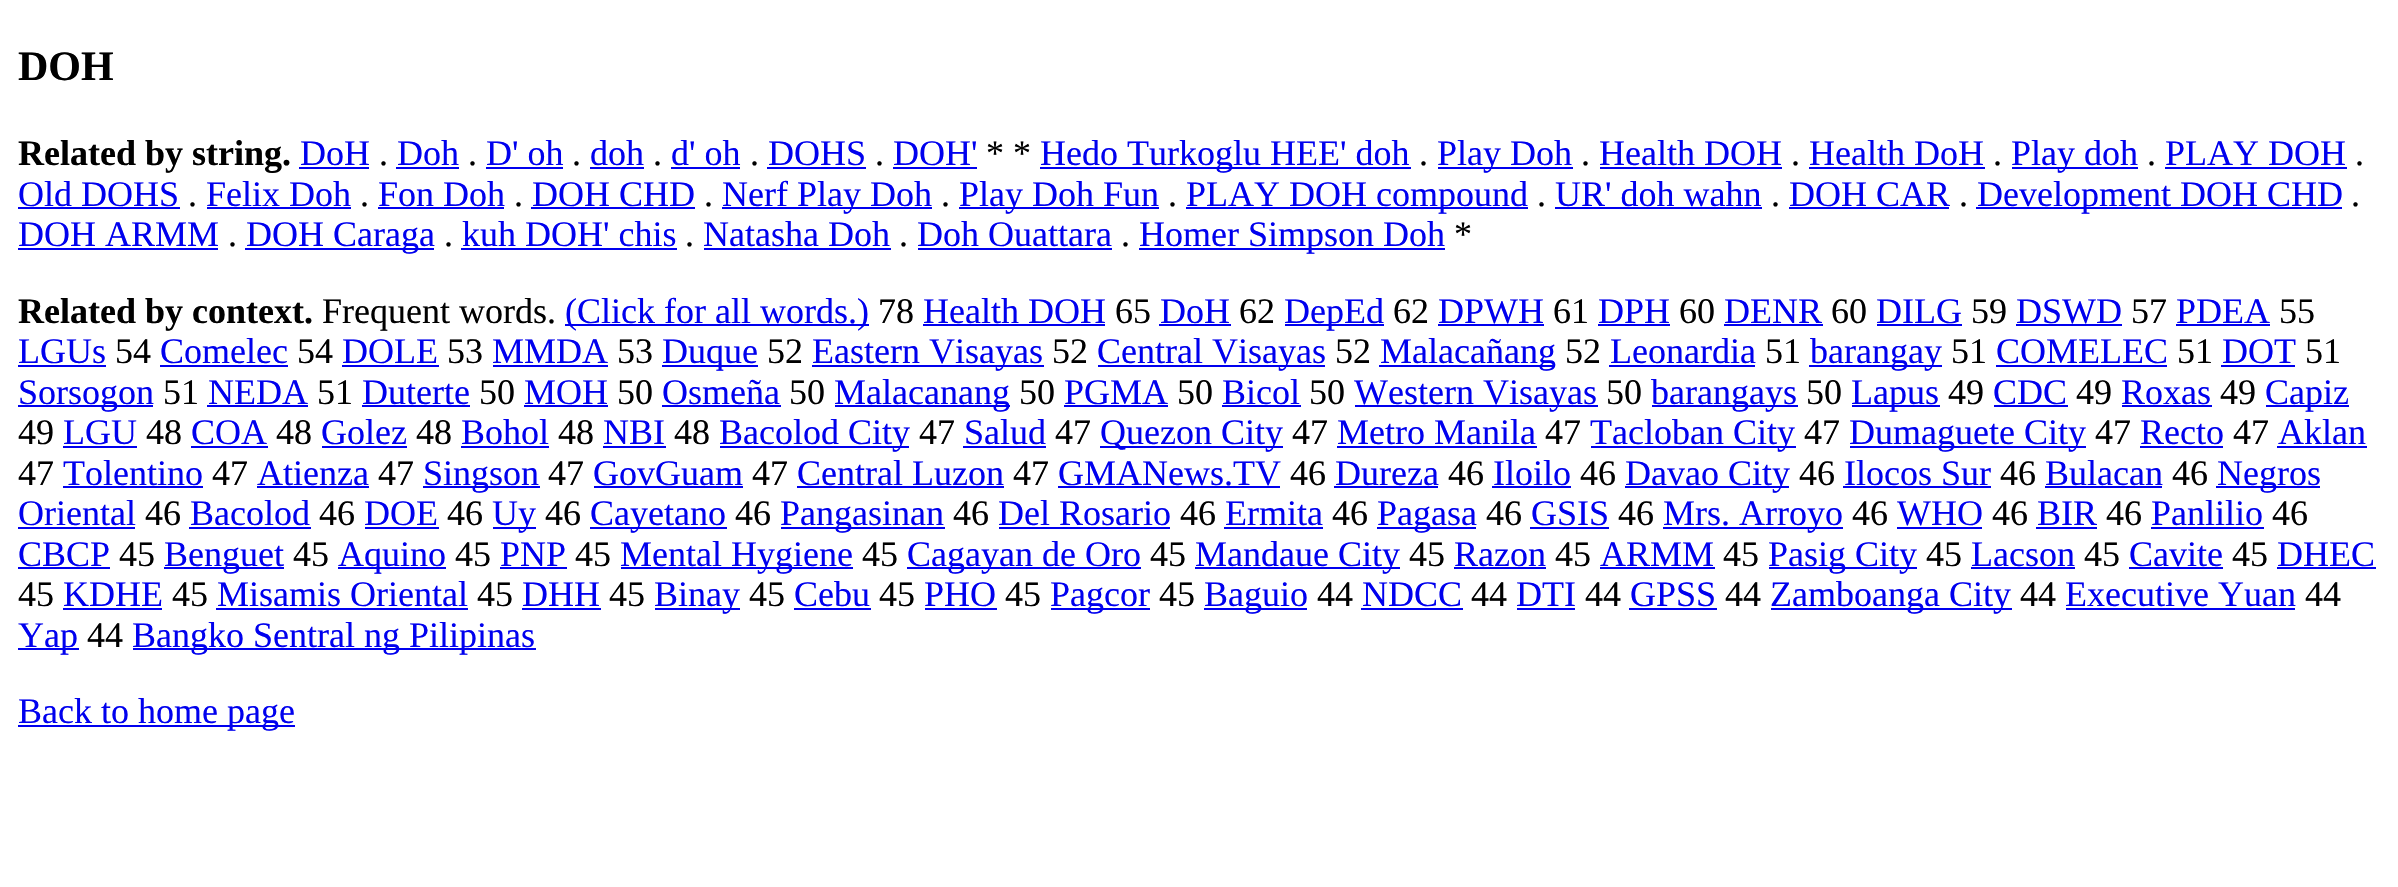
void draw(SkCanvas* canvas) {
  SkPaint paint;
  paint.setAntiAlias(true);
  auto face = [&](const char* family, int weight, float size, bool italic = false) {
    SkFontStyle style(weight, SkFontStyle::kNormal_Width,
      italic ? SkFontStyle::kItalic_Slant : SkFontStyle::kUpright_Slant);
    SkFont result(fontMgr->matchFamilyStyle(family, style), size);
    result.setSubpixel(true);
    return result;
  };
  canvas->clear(0xffffffff);
  {
    const struct { float x, y, w, h; SkColor color; } items[] = {
      {299, 167, 70, 2, 0xff0000ee},
      {396, 167, 63, 2, 0xff0000ee},
      {486, 167, 77, 2, 0xff0000ee},
      {590, 167, 54, 2, 0xff0000ee},
      {671, 167, 69, 2, 0xff0000ee},
      {767, 167, 99, 2, 0xff0000ee},
      {893, 167, 84, 2, 0xff0000ee},
      {1040, 167, 371, 2, 0xff0000ee},
      {1438, 167, 135, 2, 0xff0000ee},
      {1600, 167, 182, 2, 0xff0000ee},
      {1809, 167, 176, 2, 0xff0000ee},
      {2012, 167, 126, 2, 0xff0000ee},
      {2165, 167, 182, 2, 0xff0000ee},
      {18, 207, 162, 2, 0xff0000ee},
      {207, 207, 144, 2, 0xff0000ee},
      {378, 207, 126, 2, 0xff0000ee},
      {531, 207, 164, 2, 0xff0000ee},
      {722, 207, 210, 2, 0xff0000ee},
      {959, 207, 200, 2, 0xff0000ee},
      {1186, 207, 342, 2, 0xff0000ee},
      {1555, 207, 207, 2, 0xff0000ee},
      {1789, 207, 160, 2, 0xff0000ee},
      {1976, 207, 366, 2, 0xff0000ee},
      {18, 248, 200, 2, 0xff0000ee},
      {245, 248, 189, 2, 0xff0000ee},
      {461, 248, 216, 2, 0xff0000ee},
      {704, 248, 187, 2, 0xff0000ee},
      {918, 248, 194, 2, 0xff0000ee},
      {1139, 248, 306, 2, 0xff0000ee},
      {565, 324, 304, 2, 0xff0000ee},
      {923, 324, 182, 2, 0xff0000ee},
      {1159, 324, 72, 2, 0xff0000ee},
      {1285, 324, 99, 2, 0xff0000ee},
      {1438, 324, 106, 2, 0xff0000ee},
      {1598, 324, 72, 2, 0xff0000ee},
      {1724, 324, 99, 2, 0xff0000ee},
      {1877, 324, 85, 2, 0xff0000ee},
      {2016, 324, 106, 2, 0xff0000ee},
      {2176, 324, 94, 2, 0xff0000ee},
      {18, 365, 88, 2, 0xff0000ee},
      {160, 365, 128, 2, 0xff0000ee},
      {342, 365, 97, 2, 0xff0000ee},
      {493, 365, 115, 2, 0xff0000ee},
      {662, 365, 96, 2, 0xff0000ee},
      {812, 365, 232, 2, 0xff0000ee},
      {1098, 365, 227, 2, 0xff0000ee},
      {1379, 365, 176, 2, 0xff0000ee},
      {1609, 365, 146, 2, 0xff0000ee},
      {1809, 365, 133, 2, 0xff0000ee},
      {1996, 365, 171, 2, 0xff0000ee},
      {2221, 365, 74, 2, 0xff0000ee},
      {18, 405, 135, 2, 0xff0000ee},
      {207, 405, 101, 2, 0xff0000ee},
      {362, 405, 108, 2, 0xff0000ee},
      {524, 405, 84, 2, 0xff0000ee},
      {662, 405, 119, 2, 0xff0000ee},
      {835, 405, 175, 2, 0xff0000ee},
      {1064, 405, 104, 2, 0xff0000ee},
      {1222, 405, 79, 2, 0xff0000ee},
      {1355, 405, 243, 2, 0xff0000ee},
      {1652, 405, 146, 2, 0xff0000ee},
      {1852, 405, 88, 2, 0xff0000ee},
      {1994, 405, 74, 2, 0xff0000ee},
      {2122, 405, 90, 2, 0xff0000ee},
      {2266, 405, 83, 2, 0xff0000ee},
      {63, 446, 74, 2, 0xff0000ee},
      {191, 446, 77, 2, 0xff0000ee},
      {322, 446, 85, 2, 0xff0000ee},
      {461, 446, 88, 2, 0xff0000ee},
      {603, 446, 63, 2, 0xff0000ee},
      {720, 446, 189, 2, 0xff0000ee},
      {963, 446, 83, 2, 0xff0000ee},
      {1100, 446, 183, 2, 0xff0000ee},
      {1337, 446, 200, 2, 0xff0000ee},
      {1591, 446, 205, 2, 0xff0000ee},
      {1850, 446, 236, 2, 0xff0000ee},
      {2140, 446, 83, 2, 0xff0000ee},
      {2277, 446, 90, 2, 0xff0000ee},
      {63, 486, 140, 2, 0xff0000ee},
      {257, 486, 112, 2, 0xff0000ee},
      {423, 486, 117, 2, 0xff0000ee},
      {594, 486, 149, 2, 0xff0000ee},
      {797, 486, 207, 2, 0xff0000ee},
      {1058, 486, 222, 2, 0xff0000ee},
      {1334, 486, 104, 2, 0xff0000ee},
      {1492, 486, 79, 2, 0xff0000ee},
      {1625, 486, 164, 2, 0xff0000ee},
      {1843, 486, 148, 2, 0xff0000ee},
      {2045, 486, 117, 2, 0xff0000ee},
      {2216, 486, 104, 2, 0xff0000ee},
      {18, 527, 117, 2, 0xff0000ee},
      {189, 527, 122, 2, 0xff0000ee},
      {365, 527, 74, 2, 0xff0000ee},
      {493, 527, 43, 2, 0xff0000ee},
      {590, 527, 137, 2, 0xff0000ee},
      {781, 527, 164, 2, 0xff0000ee},
      {999, 527, 171, 2, 0xff0000ee},
      {1224, 527, 99, 2, 0xff0000ee},
      {1377, 527, 99, 2, 0xff0000ee},
      {1530, 527, 79, 2, 0xff0000ee},
      {1663, 527, 180, 2, 0xff0000ee},
      {1897, 527, 85, 2, 0xff0000ee},
      {2036, 527, 61, 2, 0xff0000ee},
      {2151, 527, 113, 2, 0xff0000ee},
      {18, 567, 92, 2, 0xff0000ee},
      {164, 567, 120, 2, 0xff0000ee},
      {338, 567, 108, 2, 0xff0000ee},
      {500, 567, 67, 2, 0xff0000ee},
      {621, 567, 232, 2, 0xff0000ee},
      {907, 567, 234, 2, 0xff0000ee},
      {1195, 567, 205, 2, 0xff0000ee},
      {1454, 567, 92, 2, 0xff0000ee},
      {1600, 567, 115, 2, 0xff0000ee},
      {1769, 567, 148, 2, 0xff0000ee},
      {1971, 567, 104, 2, 0xff0000ee},
      {2129, 567, 94, 2, 0xff0000ee},
      {2277, 567, 99, 2, 0xff0000ee},
      {63, 608, 99, 2, 0xff0000ee},
      {216, 608, 252, 2, 0xff0000ee},
      {522, 608, 79, 2, 0xff0000ee},
      {655, 608, 85, 2, 0xff0000ee},
      {794, 608, 77, 2, 0xff0000ee},
      {925, 608, 72, 2, 0xff0000ee},
      {1051, 608, 99, 2, 0xff0000ee},
      {1204, 608, 103, 2, 0xff0000ee},
      {1361, 608, 102, 2, 0xff0000ee},
      {1517, 608, 58, 2, 0xff0000ee},
      {1629, 608, 88, 2, 0xff0000ee},
      {1771, 608, 241, 2, 0xff0000ee},
      {2066, 608, 229, 2, 0xff0000ee},
      {18, 648, 61, 2, 0xff0000ee},
      {133, 648, 403, 2, 0xff0000ee},
      {18, 725, 277, 2, 0xff0000ee},
    };
    for (auto [x, y, w, h, color] : items) {
      paint.setColor(color);
      canvas->drawRect(SkRect::MakeXYWH(x, y, w, h), paint);
    }
  }
  auto f0 = face("Liberation Serif", 700, 42);
  paint.setColor(0xff000000);
  canvas->drawString("DOH", 18, 80, f0, paint);
  auto f1 = face("Liberation Serif", 700, 36);
  canvas->drawString("Related by string.", 18, 165, f1, paint);
  auto f2 = face("Liberation Serif", 400, 36);
  paint.setColor(0xff0000ee);
  canvas->drawString("DoH", 300, 165, f2, paint);
  paint.setColor(0xff000000);
  canvas->drawString(".", 379, 165, f2, paint);
  paint.setColor(0xff0000ee);
  canvas->drawString("Doh", 397, 165, f2, paint);
  paint.setColor(0xff000000);
  canvas->drawString(".", 468, 165, f2, paint);
  paint.setColor(0xff0000ee);
  canvas->drawString("D' oh", 486, 165, f2, paint);
  paint.setColor(0xff000000);
  canvas->drawString(".", 572, 165, f2, paint);
  paint.setColor(0xff0000ee);
  canvas->drawString("doh", 590, 165, f2, paint);
  paint.setColor(0xff000000);
  canvas->drawString(".", 653, 165, f2, paint);
  paint.setColor(0xff0000ee);
  canvas->drawString("d' oh", 671, 165, f2, paint);
  paint.setColor(0xff000000);
  canvas->drawString(".", 750, 165, f2, paint);
  paint.setColor(0xff0000ee);
  canvas->drawString("DOHS", 768, 165, f2, paint);
  paint.setColor(0xff000000);
  canvas->drawString(".", 875, 165, f2, paint);
  paint.setColor(0xff0000ee);
  canvas->drawString("DOH'", 893, 165, f2, paint);
  paint.setColor(0xff000000);
  canvas->drawString("* *", 986, 165, f2, paint);
  paint.setColor(0xff0000ee);
  canvas->drawString("Hedo Turkoglu HEE' doh", 1040, 165, f2, paint);
  paint.setColor(0xff000000);
  canvas->drawString(".", 1419, 165, f2, paint);
  paint.setColor(0xff0000ee);
  canvas->drawString("Play Doh", 1437, 165, f2, paint);
  paint.setColor(0xff000000);
  canvas->drawString(".", 1581, 165, f2, paint);
  paint.setColor(0xff0000ee);
  canvas->drawString("Health DOH", 1599, 165, f2, paint);
  paint.setColor(0xff000000);
  canvas->drawString(".", 1791, 165, f2, paint);
  paint.setColor(0xff0000ee);
  canvas->drawString("Health DoH", 1809, 165, f2, paint);
  paint.setColor(0xff000000);
  canvas->drawString(".", 1993, 165, f2, paint);
  paint.setColor(0xff0000ee);
  canvas->drawString("Play doh", 2011, 165, f2, paint);
  paint.setColor(0xff000000);
  canvas->drawString(".", 2147, 165, f2, paint);
  paint.setColor(0xff0000ee);
  canvas->drawString("PLAY DOH", 2165, 165, f2, paint);
  paint.setColor(0xff000000);
  canvas->drawString(".", 2355, 165, f2, paint);
  paint.setColor(0xff0000ee);
  canvas->drawString("Old DOHS", 18, 206, f2, paint);
  paint.setColor(0xff000000);
  canvas->drawString(".", 188, 206, f2, paint);
  paint.setColor(0xff0000ee);
  canvas->drawString("Felix Doh", 206, 206, f2, paint);
  paint.setColor(0xff000000);
  canvas->drawString(".", 360, 206, f2, paint);
  paint.setColor(0xff0000ee);
  canvas->drawString("Fon Doh", 378, 206, f2, paint);
  paint.setColor(0xff000000);
  canvas->drawString(".", 514, 206, f2, paint);
  paint.setColor(0xff0000ee);
  canvas->drawString("DOH CHD", 532, 206, f2, paint);
  paint.setColor(0xff000000);
  canvas->drawString(".", 704, 206, f2, paint);
  paint.setColor(0xff0000ee);
  canvas->drawString("Nerf Play Doh", 722, 206, f2, paint);
  paint.setColor(0xff000000);
  canvas->drawString(".", 941, 206, f2, paint);
  paint.setColor(0xff0000ee);
  canvas->drawString("Play Doh Fun", 959, 206, f2, paint);
  paint.setColor(0xff000000);
  canvas->drawString(".", 1168, 206, f2, paint);
  paint.setColor(0xff0000ee);
  canvas->drawString("PLAY DOH compound", 1186, 206, f2, paint);
  paint.setColor(0xff000000);
  canvas->drawString(".", 1537, 206, f2, paint);
  paint.setColor(0xff0000ee);
  canvas->drawString("UR' doh wahn", 1555, 206, f2, paint);
  paint.setColor(0xff000000);
  canvas->drawString(".", 1771, 206, f2, paint);
  paint.setColor(0xff0000ee);
  canvas->drawString("DOH CAR", 1789, 206, f2, paint);
  paint.setColor(0xff000000);
  canvas->drawString(".", 1959, 206, f2, paint);
  paint.setColor(0xff0000ee);
  canvas->drawString("Development DOH CHD", 1977, 206, f2, paint);
  paint.setColor(0xff000000);
  canvas->drawString(".", 2351, 206, f2, paint);
  paint.setColor(0xff0000ee);
  {
    const struct { const char* s; float x, y; } items[] = {
      {"DOH ARMM", 18, 246},
      {"DOH Caraga", 246, 246},
      {"kuh DOH' chis", 462, 246},
      {"Natasha Doh", 703, 246},
      {"Doh Ouattara", 917, 246},
      {"Homer Simpson Doh", 1139, 246},
    };
    for (auto [s, x, y] : items) {
      canvas->drawString(s, x, y, f2, paint);
    }
  }
  paint.setColor(0xff000000);
  {
    const struct { const char* s; float x, y; } items[] = {
      {"*", 1454, 246},
      {".", 228, 246},
      {".", 444, 246},
      {".", 685, 246},
      {".", 899, 246},
      {".", 1121, 246},
    };
    for (auto [s, x, y] : items) {
      canvas->drawString(s, x, y, f2, paint);
    }
  }
  canvas->drawString("Related by context.", 18, 323, f1, paint);
  canvas->drawString("Frequent words.", 322, 323, f2, paint);
  paint.setColor(0xff0000ee);
  canvas->drawString("(Click for all words.)", 565, 323, f2, paint);
  paint.setColor(0xff000000);
  canvas->drawString("78", 878, 323, f2, paint);
  paint.setColor(0xff0000ee);
  canvas->drawString("Health DOH", 923, 323, f2, paint);
  paint.setColor(0xff000000);
  canvas->drawString("65", 1115, 323, f2, paint);
  paint.setColor(0xff0000ee);
  canvas->drawString("DoH", 1160, 323, f2, paint);
  paint.setColor(0xff000000);
  canvas->drawString("62", 1239, 323, f2, paint);
  paint.setColor(0xff0000ee);
  canvas->drawString("DepEd", 1284, 323, f2, paint);
  paint.setColor(0xff000000);
  canvas->drawString("62", 1393, 323, f2, paint);
  paint.setColor(0xff0000ee);
  canvas->drawString("DPWH", 1438, 323, f2, paint);
  paint.setColor(0xff000000);
  canvas->drawString("61", 1553, 323, f2, paint);
  paint.setColor(0xff0000ee);
  canvas->drawString("DPH", 1598, 323, f2, paint);
  paint.setColor(0xff000000);
  canvas->drawString("60", 1679, 323, f2, paint);
  paint.setColor(0xff0000ee);
  canvas->drawString("DENR", 1724, 323, f2, paint);
  paint.setColor(0xff000000);
  canvas->drawString("60", 1831, 323, f2, paint);
  paint.setColor(0xff0000ee);
  canvas->drawString("DILG", 1876, 323, f2, paint);
  paint.setColor(0xff000000);
  canvas->drawString("59", 1971, 323, f2, paint);
  paint.setColor(0xff0000ee);
  canvas->drawString("DSWD", 2016, 323, f2, paint);
  paint.setColor(0xff000000);
  canvas->drawString("57", 2131, 323, f2, paint);
  paint.setColor(0xff0000ee);
  canvas->drawString("PDEA", 2176, 323, f2, paint);
  paint.setColor(0xff000000);
  canvas->drawString("55", 2279, 323, f2, paint);
  paint.setColor(0xff0000ee);
  canvas->drawString("LGUs", 18, 363, f2, paint);
  paint.setColor(0xff000000);
  canvas->drawString("54", 115, 363, f2, paint);
  paint.setColor(0xff0000ee);
  canvas->drawString("Comelec", 160, 363, f2, paint);
  paint.setColor(0xff000000);
  canvas->drawString("54", 297, 363, f2, paint);
  paint.setColor(0xff0000ee);
  canvas->drawString("DOLE", 342, 363, f2, paint);
  paint.setColor(0xff000000);
  canvas->drawString("53", 447, 363, f2, paint);
  paint.setColor(0xff0000ee);
  canvas->drawString("MMDA", 492, 363, f2, paint);
  paint.setColor(0xff000000);
  canvas->drawString("53", 617, 363, f2, paint);
  paint.setColor(0xff0000ee);
  canvas->drawString("Duque", 662, 363, f2, paint);
  paint.setColor(0xff000000);
  canvas->drawString("52", 767, 363, f2, paint);
  paint.setColor(0xff0000ee);
  canvas->drawString("Eastern Visayas", 812, 363, f2, paint);
  paint.setColor(0xff000000);
  canvas->drawString("52", 1052, 363, f2, paint);
  paint.setColor(0xff0000ee);
  canvas->drawString("Central Visayas", 1097, 363, f2, paint);
  paint.setColor(0xff000000);
  canvas->drawString("52", 1335, 363, f2, paint);
  paint.setColor(0xff0000ee);
  canvas->drawString("Malacañang", 1380, 363, f2, paint);
  paint.setColor(0xff000000);
  canvas->drawString("52", 1565, 363, f2, paint);
  paint.setColor(0xff0000ee);
  canvas->drawString("Leonardia", 1610, 363, f2, paint);
  paint.setColor(0xff000000);
  canvas->drawString("51", 1765, 363, f2, paint);
  paint.setColor(0xff0000ee);
  canvas->drawString("barangay", 1810, 363, f2, paint);
  paint.setColor(0xff000000);
  canvas->drawString("51", 1951, 363, f2, paint);
  paint.setColor(0xff0000ee);
  canvas->drawString("COMELEC", 1996, 363, f2, paint);
  paint.setColor(0xff000000);
  canvas->drawString("51", 2177, 363, f2, paint);
  paint.setColor(0xff0000ee);
  canvas->drawString("DOT", 2222, 363, f2, paint);
  paint.setColor(0xff000000);
  canvas->drawString("51", 2305, 363, f2, paint);
  paint.setColor(0xff0000ee);
  canvas->drawString("Sorsogon", 18, 404, f2, paint);
  paint.setColor(0xff000000);
  canvas->drawString("51", 163, 404, f2, paint);
  paint.setColor(0xff0000ee);
  canvas->drawString("NEDA", 208, 404, f2, paint);
  paint.setColor(0xff000000);
  canvas->drawString("51", 317, 404, f2, paint);
  paint.setColor(0xff0000ee);
  canvas->drawString("Duterte", 362, 404, f2, paint);
  paint.setColor(0xff000000);
  canvas->drawString("50", 479, 404, f2, paint);
  paint.setColor(0xff0000ee);
  canvas->drawString("MOH", 524, 404, f2, paint);
  paint.setColor(0xff000000);
  canvas->drawString("50", 617, 404, f2, paint);
  paint.setColor(0xff0000ee);
  canvas->drawString("Osmeña", 662, 404, f2, paint);
  paint.setColor(0xff000000);
  canvas->drawString("50", 789, 404, f2, paint);
  paint.setColor(0xff0000ee);
  canvas->drawString("Malacanang", 834, 404, f2, paint);
  paint.setColor(0xff000000);
  canvas->drawString("50", 1019, 404, f2, paint);
  paint.setColor(0xff0000ee);
  canvas->drawString("PGMA", 1064, 404, f2, paint);
  paint.setColor(0xff000000);
  canvas->drawString("50", 1177, 404, f2, paint);
  paint.setColor(0xff0000ee);
  canvas->drawString("Bicol", 1222, 404, f2, paint);
  paint.setColor(0xff000000);
  canvas->drawString("50", 1309, 404, f2, paint);
  paint.setColor(0xff0000ee);
  canvas->drawString("Western Visayas", 1354, 404, f2, paint);
  paint.setColor(0xff000000);
  canvas->drawString("50", 1606, 404, f2, paint);
  paint.setColor(0xff0000ee);
  canvas->drawString("barangays", 1651, 404, f2, paint);
  paint.setColor(0xff000000);
  canvas->drawString("50", 1806, 404, f2, paint);
  paint.setColor(0xff0000ee);
  canvas->drawString("Lapus", 1851, 404, f2, paint);
  paint.setColor(0xff000000);
  canvas->drawString("49", 1948, 404, f2, paint);
  paint.setColor(0xff0000ee);
  canvas->drawString("CDC", 1993, 404, f2, paint);
  paint.setColor(0xff000000);
  canvas->drawString("49", 2076, 404, f2, paint);
  paint.setColor(0xff0000ee);
  canvas->drawString("Roxas", 2121, 404, f2, paint);
  paint.setColor(0xff000000);
  canvas->drawString("49", 2220, 404, f2, paint);
  paint.setColor(0xff0000ee);
  canvas->drawString("Capiz", 2265, 404, f2, paint);
  paint.setColor(0xff000000);
  canvas->drawString("49", 18, 444, f2, paint);
  paint.setColor(0xff0000ee);
  canvas->drawString("LGU", 63, 444, f2, paint);
  paint.setColor(0xff000000);
  canvas->drawString("48", 146, 444, f2, paint);
  paint.setColor(0xff0000ee);
  canvas->drawString("COA", 191, 444, f2, paint);
  paint.setColor(0xff000000);
  canvas->drawString("48", 276, 444, f2, paint);
  paint.setColor(0xff0000ee);
  canvas->drawString("Golez", 321, 444, f2, paint);
  paint.setColor(0xff000000);
  canvas->drawString("48", 416, 444, f2, paint);
  paint.setColor(0xff0000ee);
  canvas->drawString("Bohol", 461, 444, f2, paint);
  paint.setColor(0xff000000);
  canvas->drawString("48", 558, 444, f2, paint);
  paint.setColor(0xff0000ee);
  canvas->drawString("NBI", 603, 444, f2, paint);
  paint.setColor(0xff000000);
  canvas->drawString("48", 674, 444, f2, paint);
  paint.setColor(0xff0000ee);
  canvas->drawString("Bacolod City", 719, 444, f2, paint);
  paint.setColor(0xff000000);
  canvas->drawString("47", 919, 444, f2, paint);
  paint.setColor(0xff0000ee);
  canvas->drawString("Salud", 964, 444, f2, paint);
  paint.setColor(0xff000000);
  canvas->drawString("47", 1055, 444, f2, paint);
  paint.setColor(0xff0000ee);
  canvas->drawString("Quezon City", 1100, 444, f2, paint);
  paint.setColor(0xff000000);
  canvas->drawString("47", 1292, 444, f2, paint);
  paint.setColor(0xff0000ee);
  canvas->drawString("Metro Manila", 1337, 444, f2, paint);
  paint.setColor(0xff000000);
  canvas->drawString("47", 1545, 444, f2, paint);
  paint.setColor(0xff0000ee);
  canvas->drawString("Tacloban City", 1590, 444, f2, paint);
  paint.setColor(0xff000000);
  canvas->drawString("47", 1804, 444, f2, paint);
  paint.setColor(0xff0000ee);
  canvas->drawString("Dumaguete City", 1849, 444, f2, paint);
  paint.setColor(0xff000000);
  canvas->drawString("47", 2095, 444, f2, paint);
  paint.setColor(0xff0000ee);
  canvas->drawString("Recto", 2140, 444, f2, paint);
  paint.setColor(0xff000000);
  canvas->drawString("47", 2233, 444, f2, paint);
  paint.setColor(0xff0000ee);
  canvas->drawString("Aklan", 2278, 444, f2, paint);
  paint.setColor(0xff000000);
  canvas->drawString("47", 18, 485, f2, paint);
  paint.setColor(0xff0000ee);
  canvas->drawString("Tolentino", 63, 485, f2, paint);
  paint.setColor(0xff000000);
  canvas->drawString("47", 212, 485, f2, paint);
  paint.setColor(0xff0000ee);
  canvas->drawString("Atienza", 257, 485, f2, paint);
  paint.setColor(0xff000000);
  canvas->drawString("47", 378, 485, f2, paint);
  paint.setColor(0xff0000ee);
  canvas->drawString("Singson", 423, 485, f2, paint);
  paint.setColor(0xff000000);
  canvas->drawString("47", 548, 485, f2, paint);
  paint.setColor(0xff0000ee);
  canvas->drawString("GovGuam", 593, 485, f2, paint);
  paint.setColor(0xff000000);
  canvas->drawString("47", 752, 485, f2, paint);
  paint.setColor(0xff0000ee);
  canvas->drawString("Central Luzon", 797, 485, f2, paint);
  paint.setColor(0xff000000);
  canvas->drawString("47", 1013, 485, f2, paint);
  paint.setColor(0xff0000ee);
  canvas->drawString("GMANews.TV", 1058, 485, f2, paint);
  paint.setColor(0xff000000);
  canvas->drawString("46", 1290, 485, f2, paint);
  paint.setColor(0xff0000ee);
  canvas->drawString("Dureza", 1335, 485, f2, paint);
  paint.setColor(0xff000000);
  canvas->drawString("46", 1448, 485, f2, paint);
  paint.setColor(0xff0000ee);
  canvas->drawString("Iloilo", 1493, 485, f2, paint);
  paint.setColor(0xff000000);
  canvas->drawString("46", 1580, 485, f2, paint);
  paint.setColor(0xff0000ee);
  canvas->drawString("Davao City", 1625, 485, f2, paint);
  paint.setColor(0xff000000);
  canvas->drawString("46", 1799, 485, f2, paint);
  paint.setColor(0xff0000ee);
  canvas->drawString("Ilocos Sur", 1844, 485, f2, paint);
  paint.setColor(0xff000000);
  canvas->drawString("46", 2000, 485, f2, paint);
  paint.setColor(0xff0000ee);
  canvas->drawString("Bulacan", 2045, 485, f2, paint);
  paint.setColor(0xff000000);
  canvas->drawString("46", 2172, 485, f2, paint);
  paint.setColor(0xff0000ee);
  canvas->drawString("Negros", 2217, 485, f2, paint);
  canvas->drawString("Oriental", 18, 525, f2, paint);
  paint.setColor(0xff000000);
  canvas->drawString("46", 145, 525, f2, paint);
  paint.setColor(0xff0000ee);
  canvas->drawString("Bacolod", 190, 525, f2, paint);
  paint.setColor(0xff000000);
  canvas->drawString("46", 319, 525, f2, paint);
  paint.setColor(0xff0000ee);
  canvas->drawString("DOE", 364, 525, f2, paint);
  paint.setColor(0xff000000);
  canvas->drawString("46", 447, 525, f2, paint);
  paint.setColor(0xff0000ee);
  canvas->drawString("Uy", 492, 525, f2, paint);
  paint.setColor(0xff000000);
  canvas->drawString("46", 545, 525, f2, paint);
  paint.setColor(0xff0000ee);
  canvas->drawString("Cayetano", 590, 525, f2, paint);
  paint.setColor(0xff000000);
  canvas->drawString("46", 735, 525, f2, paint);
  paint.setColor(0xff0000ee);
  canvas->drawString("Pangasinan", 780, 525, f2, paint);
  paint.setColor(0xff000000);
  canvas->drawString("46", 953, 525, f2, paint);
  paint.setColor(0xff0000ee);
  canvas->drawString("Del Rosario", 998, 525, f2, paint);
  paint.setColor(0xff000000);
  canvas->drawString("46", 1180, 525, f2, paint);
  paint.setColor(0xff0000ee);
  canvas->drawString("Ermita", 1225, 525, f2, paint);
  paint.setColor(0xff000000);
  canvas->drawString("46", 1332, 525, f2, paint);
  paint.setColor(0xff0000ee);
  canvas->drawString("Pagasa", 1377, 525, f2, paint);
  paint.setColor(0xff000000);
  canvas->drawString("46", 1486, 525, f2, paint);
  paint.setColor(0xff0000ee);
  canvas->drawString("GSIS", 1531, 525, f2, paint);
  paint.setColor(0xff000000);
  canvas->drawString("46", 1618, 525, f2, paint);
  paint.setColor(0xff0000ee);
  canvas->drawString("Mrs. Arroyo", 1663, 525, f2, paint);
  paint.setColor(0xff000000);
  canvas->drawString("46", 1852, 525, f2, paint);
  paint.setColor(0xff0000ee);
  canvas->drawString("WHO", 1897, 525, f2, paint);
  paint.setColor(0xff000000);
  canvas->drawString("46", 1992, 525, f2, paint);
  paint.setColor(0xff0000ee);
  canvas->drawString("BIR", 2037, 525, f2, paint);
  paint.setColor(0xff000000);
  canvas->drawString("46", 2106, 525, f2, paint);
  paint.setColor(0xff0000ee);
  canvas->drawString("Panlilio", 2151, 525, f2, paint);
  paint.setColor(0xff000000);
  canvas->drawString("46", 2272, 525, f2, paint);
  paint.setColor(0xff0000ee);
  canvas->drawString("CBCP", 18, 566, f2, paint);
  paint.setColor(0xff000000);
  canvas->drawString("45", 119, 566, f2, paint);
  paint.setColor(0xff0000ee);
  canvas->drawString("Benguet", 164, 566, f2, paint);
  paint.setColor(0xff000000);
  canvas->drawString("45", 293, 566, f2, paint);
  paint.setColor(0xff0000ee);
  canvas->drawString("Aquino", 338, 566, f2, paint);
  paint.setColor(0xff000000);
  canvas->drawString("45", 455, 566, f2, paint);
  paint.setColor(0xff0000ee);
  canvas->drawString("PNP", 500, 566, f2, paint);
  paint.setColor(0xff000000);
  canvas->drawString("45", 575, 566, f2, paint);
  paint.setColor(0xff0000ee);
  canvas->drawString("Mental Hygiene", 620, 566, f2, paint);
  paint.setColor(0xff000000);
  canvas->drawString("45", 862, 566, f2, paint);
  paint.setColor(0xff0000ee);
  canvas->drawString("Cagayan de Oro", 907, 566, f2, paint);
  paint.setColor(0xff000000);
  canvas->drawString("45", 1150, 566, f2, paint);
  paint.setColor(0xff0000ee);
  canvas->drawString("Mandaue City", 1195, 566, f2, paint);
  paint.setColor(0xff000000);
  canvas->drawString("45", 1409, 566, f2, paint);
  paint.setColor(0xff0000ee);
  canvas->drawString("Razon", 1454, 566, f2, paint);
  paint.setColor(0xff000000);
  canvas->drawString("45", 1555, 566, f2, paint);
  paint.setColor(0xff0000ee);
  canvas->drawString("ARMM", 1600, 566, f2, paint);
  paint.setColor(0xff000000);
  canvas->drawString("45", 1723, 566, f2, paint);
  paint.setColor(0xff0000ee);
  canvas->drawString("Pasig City", 1768, 566, f2, paint);
  paint.setColor(0xff000000);
  canvas->drawString("45", 1926, 566, f2, paint);
  paint.setColor(0xff0000ee);
  canvas->drawString("Lacson", 1971, 566, f2, paint);
  paint.setColor(0xff000000);
  canvas->drawString("45", 2084, 566, f2, paint);
  paint.setColor(0xff0000ee);
  canvas->drawString("Cavite", 2129, 566, f2, paint);
  paint.setColor(0xff000000);
  canvas->drawString("45", 2232, 566, f2, paint);
  paint.setColor(0xff0000ee);
  canvas->drawString("DHEC", 2277, 566, f2, paint);
  paint.setColor(0xff000000);
  canvas->drawString("45", 18, 606, f2, paint);
  paint.setColor(0xff0000ee);
  canvas->drawString("KDHE", 63, 606, f2, paint);
  paint.setColor(0xff000000);
  canvas->drawString("45", 172, 606, f2, paint);
  paint.setColor(0xff0000ee);
  canvas->drawString("Misamis Oriental", 217, 606, f2, paint);
  paint.setColor(0xff000000);
  canvas->drawString("45", 477, 606, f2, paint);
  paint.setColor(0xff0000ee);
  canvas->drawString("DHH", 522, 606, f2, paint);
  paint.setColor(0xff000000);
  canvas->drawString("45", 609, 606, f2, paint);
  paint.setColor(0xff0000ee);
  canvas->drawString("Binay", 654, 606, f2, paint);
  paint.setColor(0xff000000);
  canvas->drawString("45", 749, 606, f2, paint);
  paint.setColor(0xff0000ee);
  canvas->drawString("Cebu", 794, 606, f2, paint);
  paint.setColor(0xff000000);
  canvas->drawString("45", 879, 606, f2, paint);
  paint.setColor(0xff0000ee);
  canvas->drawString("PHO", 924, 606, f2, paint);
  paint.setColor(0xff000000);
  canvas->drawString("45", 1005, 606, f2, paint);
  paint.setColor(0xff0000ee);
  canvas->drawString("Pagcor", 1050, 606, f2, paint);
  paint.setColor(0xff000000);
  canvas->drawString("45", 1159, 606, f2, paint);
  paint.setColor(0xff0000ee);
  canvas->drawString("Baguio", 1204, 606, f2, paint);
  paint.setColor(0xff000000);
  canvas->drawString("44", 1317, 606, f2, paint);
  paint.setColor(0xff0000ee);
  canvas->drawString("NDCC", 1362, 606, f2, paint);
  paint.setColor(0xff000000);
  canvas->drawString("44", 1471, 606, f2, paint);
  paint.setColor(0xff0000ee);
  canvas->drawString("DTI", 1516, 606, f2, paint);
  paint.setColor(0xff000000);
  canvas->drawString("44", 1585, 606, f2, paint);
  paint.setColor(0xff0000ee);
  canvas->drawString("GPSS", 1630, 606, f2, paint);
  paint.setColor(0xff000000);
  canvas->drawString("44", 1725, 606, f2, paint);
  paint.setColor(0xff0000ee);
  canvas->drawString("Zamboanga City", 1770, 606, f2, paint);
  paint.setColor(0xff000000);
  canvas->drawString("44", 2020, 606, f2, paint);
  paint.setColor(0xff0000ee);
  canvas->drawString("Executive Yuan", 2065, 606, f2, paint);
  paint.setColor(0xff000000);
  canvas->drawString("44", 2305, 606, f2, paint);
  paint.setColor(0xff0000ee);
  canvas->drawString("Yap", 18, 647, f2, paint);
  paint.setColor(0xff000000);
  canvas->drawString("44", 87, 647, f2, paint);
  paint.setColor(0xff0000ee);
  canvas->drawString("Bangko Sentral ng Pilipinas", 132, 647, f2, paint);
  canvas->drawString("Back to home page", 18, 723, f2, paint);
}
